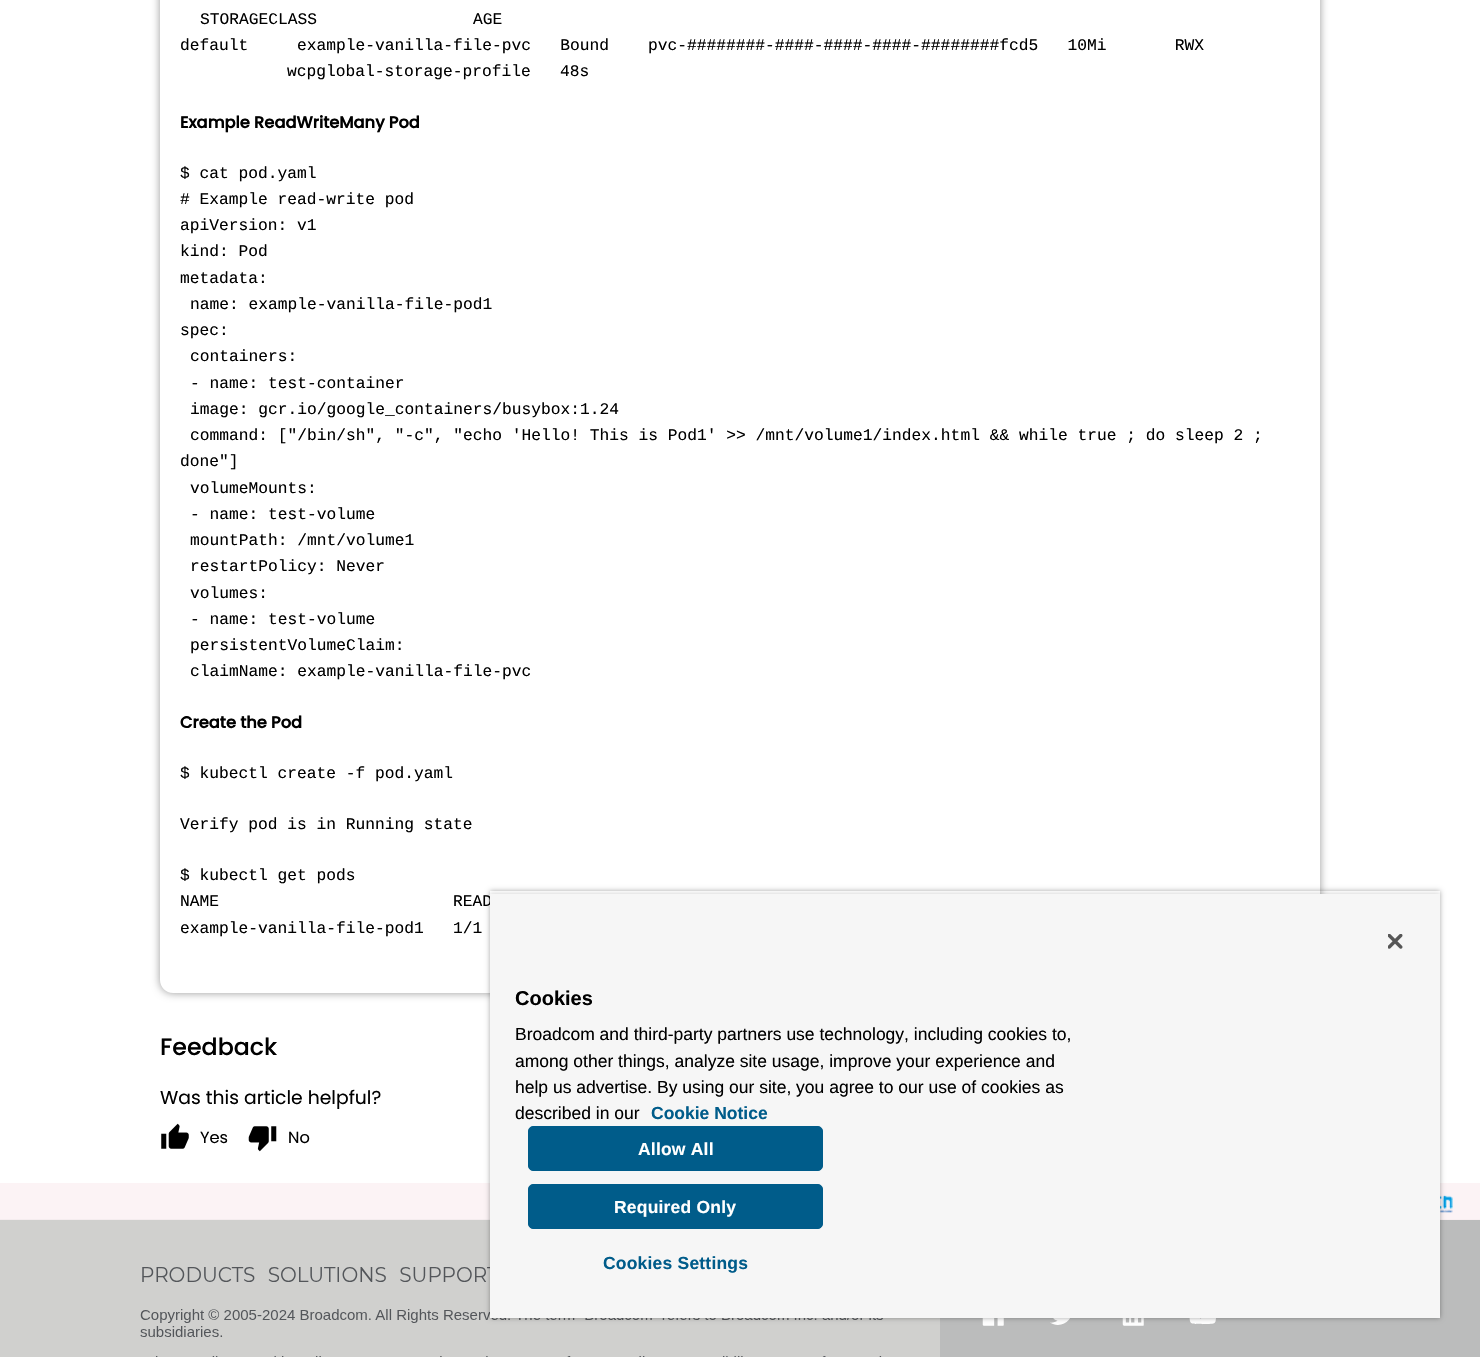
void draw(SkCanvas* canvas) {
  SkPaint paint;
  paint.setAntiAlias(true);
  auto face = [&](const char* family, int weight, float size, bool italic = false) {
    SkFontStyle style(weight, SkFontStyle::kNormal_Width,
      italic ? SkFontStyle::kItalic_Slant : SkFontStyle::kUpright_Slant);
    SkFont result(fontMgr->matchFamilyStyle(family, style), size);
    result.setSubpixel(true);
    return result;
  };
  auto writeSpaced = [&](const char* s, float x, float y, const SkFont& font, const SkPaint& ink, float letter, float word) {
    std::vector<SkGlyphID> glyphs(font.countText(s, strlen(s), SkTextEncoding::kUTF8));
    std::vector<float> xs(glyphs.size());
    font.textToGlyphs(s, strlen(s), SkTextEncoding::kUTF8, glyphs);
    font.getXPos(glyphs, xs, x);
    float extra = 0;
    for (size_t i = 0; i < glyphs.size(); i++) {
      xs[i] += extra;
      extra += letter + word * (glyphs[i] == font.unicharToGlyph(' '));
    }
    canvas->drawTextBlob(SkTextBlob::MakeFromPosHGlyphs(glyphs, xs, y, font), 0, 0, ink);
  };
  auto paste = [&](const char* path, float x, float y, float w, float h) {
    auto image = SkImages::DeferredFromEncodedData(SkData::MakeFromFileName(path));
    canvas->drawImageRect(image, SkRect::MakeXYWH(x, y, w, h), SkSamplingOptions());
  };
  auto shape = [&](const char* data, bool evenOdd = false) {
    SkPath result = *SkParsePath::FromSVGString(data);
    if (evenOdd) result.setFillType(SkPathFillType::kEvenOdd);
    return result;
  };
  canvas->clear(0xffffffff);
  canvas->save();
  canvas->clipPath(shape("M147 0H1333V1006H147ZM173-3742H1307C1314-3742 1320-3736 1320-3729V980C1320 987 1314 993 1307 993H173C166 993 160 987 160 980V-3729C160-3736 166-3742 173-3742Z", true), true);
  paint.setColor(0x66000000);
  paint.setMaskFilter(SkMaskFilter::MakeBlur(kNormal_SkBlurStyle, 4));
  canvas->drawRoundRect(SkRect::MakeXYWH(160, -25, 1160, 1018), 13, 13, paint);
  paint.setMaskFilter(nullptr);
  canvas->restore();
  paste("img/1.png", 161, 1123, 28, 26);
  paste("img/2.png", 248, 1126, 29, 26);
  paint.setColor(0xfffcf3f5);
  canvas->drawRect(SkRect::MakeXYWH(0, 1183, 1480, 37), paint);
  paste("img/3.png", 1440, 1194, 13, 19);
  paste("img/4.png", 0, 1219, 1480, 138);
  canvas->save();
  canvas->clipPath(shape("M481 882H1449V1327H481ZM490 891H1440V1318H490Z", true), true);
  paint.setColor(0x59000000);
  paint.setMaskFilter(SkMaskFilter::MakeBlur(kNormal_SkBlurStyle, 2.5f));
  canvas->drawRect(SkRect::MakeXYWH(490, 891, 950, 427), paint);
  paint.setMaskFilter(nullptr);
  canvas->restore();
  canvas->save();
  canvas->clipRect(SkRect::MakeXYWH(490, 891, 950, 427));
  paint.setColor(0x33000000);
  paint.setMaskFilter(SkMaskFilter::MakeBlur(kNormal_SkBlurStyle, 2.5f));
  canvas->drawRect(SkRect::MakeXYWH(490, 894, 950, 424), paint);
  paint.setMaskFilter(nullptr);
  canvas->restore();
  auto f0 = face("Liberation Mono", 400, 16.25f);
  paint.setColor(0xff000000);
  {
    const struct { const char* s; float x, y; } items[] = {
      {"STORAGECLASS                AGE", 200, 24},
      {"default     example-vanilla-file-pvc   Bound    pvc-########-####-####-####-########fcd5   10Mi       RWX", 180, 50},
      {"wcpglobal-storage-profile   48s", 287, 76},
    };
    for (auto [s, x, y] : items) {
      canvas->drawString(s, x, y, f0, paint);
    }
  }
  auto f1 = face("Poppins", 700, 16.25f);
  canvas->drawString("Example ReadWriteMany Pod", 180, 128, f1, paint);
  {
    const struct { const char* s; float x, y; } items[] = {
      {"$ cat pod.yaml", 180, 178},
      {"# Example read-write pod", 180, 204},
      {"apiVersion: v1", 180, 230},
      {"kind: Pod", 180, 256},
      {"metadata:", 180, 283},
      {"name: example-vanilla-file-pod1", 190, 309},
      {"spec:", 180, 335},
      {"containers:", 190, 361},
      {"- name: test-container", 190, 388},
      {"image: gcr.io/google_containers/busybox:1.24", 190, 414},
      {"command: [\"/bin/sh\", \"-c\", \"echo 'Hello! This is Pod1' >> /mnt/volume1/index.html && while true ; do sleep 2 ;", 190, 440},
      {"done\"]", 180, 466},
      {"volumeMounts:", 190, 493},
      {"- name: test-volume", 190, 519},
      {"mountPath: /mnt/volume1", 190, 545},
      {"restartPolicy: Never", 190, 571},
      {"volumes:", 190, 598},
      {"- name: test-volume", 190, 624},
      {"persistentVolumeClaim:", 190, 650},
      {"claimName: example-vanilla-file-pvc", 190, 676},
    };
    for (auto [s, x, y] : items) {
      canvas->drawString(s, x, y, f0, paint);
    }
  }
  canvas->drawString("Create the Pod", 180, 728, f1, paint);
  {
    const struct { const char* s; float x, y; } items[] = {
      {"$ kubectl create -f pod.yaml", 180, 778},
      {"Verify pod is in Running state", 180, 829},
      {"$ kubectl get pods", 180, 880},
      {"NAME                        READ", 180, 906},
      {"example-vanilla-file-pod1   1/1", 180, 933},
    };
    for (auto [s, x, y] : items) {
      canvas->drawString(s, x, y, f0, paint);
    }
  }
  auto f2 = face("Poppins", 500, 23.75f);
  canvas->drawString("Feedback", 160, 1055, f2, paint);
  auto f3 = face("Poppins", 400, 18.75f);
  canvas->drawString("Was this article helpful?", 160, 1104, f3, paint);
  auto f4 = face("Poppins", 400, 16.25f);
  canvas->drawString("Yes", 200, 1143, f4, paint);
  canvas->drawString("No", 288, 1143, f4, paint);
  paint.setColor(0xfff6f6f6);
  canvas->drawRect(SkRect::MakeXYWH(490, 894, 950, 424), paint);
  paste("img/5.png", 1388, 934, 15, 15);
  auto f5 = face("Liberation Sans", 700, 20);
  paint.setColor(0xff000000);
  canvas->drawString("Cookies", 515, 1005, f5, paint);
  auto f6 = face("Liberation Sans", 400, 17.5f);
  {
    const struct { const char* s; float x, y; } items[] = {
      {"Broadcom and third-party partners use technology, including cookies to,", 515, 1040},
      {"among other things, analyze site usage, improve your experience and", 515, 1067},
      {"help us advertise. By using our site, you agree to our use of cookies as", 515, 1093},
      {"described in our", 515, 1119},
    };
    for (auto [s, x, y] : items) {
      canvas->drawString(s, x, y, f6, paint);
    }
  }
  auto f7 = face("Liberation Sans", 700, 17.5f);
  paint.setColor(0xff005c8a);
  canvas->drawString("Cookie Notice", 651, 1119, f7, paint);
  canvas->drawRoundRect(SkRect::MakeXYWH(528.5f, 1126.5f, 294, 44), 4.5f, 4.5f, paint);
  paint.setStroke(true);
  paint.setStrokeWidth(1);
  canvas->drawRoundRect(SkRect::MakeXYWH(528.5f, 1126.5f, 294, 44), 4.5f, 4.5f, paint);
  paint.setStroke(false);
  paint.setColor(0xffffffff);
  writeSpaced("Allow All", 638, 1155, f7, paint, 0.2f, 0);
  paint.setColor(0xff005c8a);
  canvas->drawRoundRect(SkRect::MakeXYWH(528.5f, 1184.5f, 294, 44), 4.5f, 4.5f, paint);
  paint.setStroke(true);
  canvas->drawRoundRect(SkRect::MakeXYWH(528.5f, 1184.5f, 294, 44), 4.5f, 4.5f, paint);
  paint.setStroke(false);
  paint.setColor(0xffffffff);
  writeSpaced("Required Only", 614, 1213, f7, paint, 0.2f, 0);
  paint.setColor(0xff005c8a);
  writeSpaced("Cookies Settings", 603, 1269, f7, paint, 0.2f, 0);
}
